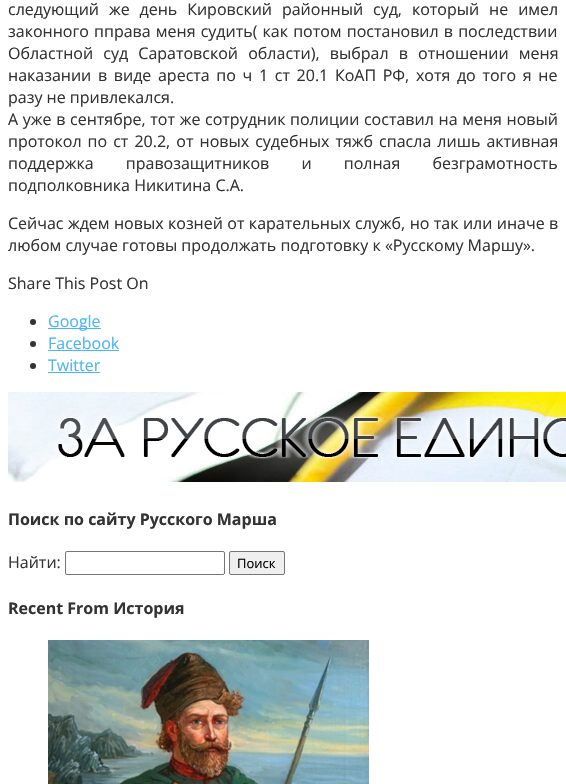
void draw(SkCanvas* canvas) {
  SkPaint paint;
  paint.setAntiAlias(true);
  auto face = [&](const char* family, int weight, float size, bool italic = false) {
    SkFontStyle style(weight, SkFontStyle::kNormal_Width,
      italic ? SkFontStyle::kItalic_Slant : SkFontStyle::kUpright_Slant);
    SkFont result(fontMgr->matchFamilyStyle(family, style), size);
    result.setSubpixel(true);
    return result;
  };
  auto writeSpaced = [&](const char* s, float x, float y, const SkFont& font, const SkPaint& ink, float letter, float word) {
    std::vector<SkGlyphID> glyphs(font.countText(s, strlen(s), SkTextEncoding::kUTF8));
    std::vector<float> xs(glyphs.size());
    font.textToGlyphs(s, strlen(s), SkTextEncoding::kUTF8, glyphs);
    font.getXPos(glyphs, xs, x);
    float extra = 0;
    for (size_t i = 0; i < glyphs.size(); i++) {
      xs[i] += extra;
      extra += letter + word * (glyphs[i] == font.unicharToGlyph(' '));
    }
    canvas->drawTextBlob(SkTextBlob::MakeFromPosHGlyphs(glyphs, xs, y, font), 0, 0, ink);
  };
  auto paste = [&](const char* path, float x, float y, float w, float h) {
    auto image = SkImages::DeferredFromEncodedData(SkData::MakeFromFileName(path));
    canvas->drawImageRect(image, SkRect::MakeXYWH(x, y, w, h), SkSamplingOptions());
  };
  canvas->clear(0xffffffff);
  paint.setColor(0xff333333);
  canvas->drawCircle(33, 322, 3, paint);
  paint.setColor(0xff4bb6f5);
  canvas->drawRect(SkRect::MakeXYWH(48, 328, 53, 1), paint);
  paint.setColor(0xff333333);
  canvas->drawCircle(33, 344, 3, paint);
  paint.setColor(0xff4bb6f5);
  canvas->drawRect(SkRect::MakeXYWH(48, 350, 71, 1), paint);
  paint.setColor(0xff333333);
  canvas->drawCircle(33, 366, 3, paint);
  paint.setColor(0xff4bb6f5);
  canvas->drawRect(SkRect::MakeXYWH(48, 372, 52, 1), paint);
  paste("img/1.png", 8, 392, 558, 90);
  paint.setStroke(true);
  paint.setStrokeWidth(1);
  paint.setColor(0xff767676);
  canvas->drawRoundRect(SkRect::MakeXYWH(65.5f, 551.5f, 159, 23), 1.5f, 1.5f, paint);
  paint.setStroke(false);
  paint.setColor(0xffefefef);
  canvas->drawRoundRect(SkRect::MakeXYWH(229.5f, 551.5f, 55, 23), 1.5f, 1.5f, paint);
  paint.setStroke(true);
  paint.setColor(0xff767676);
  canvas->drawRoundRect(SkRect::MakeXYWH(229.5f, 551.5f, 55, 23), 1.5f, 1.5f, paint);
  paste("img/2.png", 48, 640, 321, 144);
  auto f0 = face("Open Sans", 400, 16);
  paint.setStroke(false);
  paint.setColor(0xff333333);
  writeSpaced("следующий же день Кировский районный суд, который не имел", 8, 15, f0, paint, 0, 5.75f);
  writeSpaced("законного пправа меня судить( как потом постановил в последствии", 8, 37, f0, paint, 0, 1);
  writeSpaced("Областной суд Саратовской области), выбрал в отношении меня", 8, 59, f0, paint, 0, 6);
  writeSpaced("наказании в виде ареста по ч 1 ст 20.1 КоАП РФ, хотя до того я не", 8, 81, f0, paint, 0, 2.5f);
  canvas->drawString("разу не привлекался.", 8, 103, f0, paint);
  writeSpaced("А уже в сентябре, тот же сотрудник полиции составил на меня новый", 8, 125, f0, paint, 0, 0.5f);
  writeSpaced("протокол по ст 20.2, от новых судебных тяжб спасла лишь активная", 8, 147, f0, paint, 0, 1.9f);
  writeSpaced("поддержка правозащитников и полная безграмотность", 8, 169, f0, paint, 0, 28);
  canvas->drawString("подполковника Никитина С.А.", 8, 191, f0, paint);
  writeSpaced("Сейчас ждем новых козней от карательных служб, но так или иначе в", 8, 229, f0, paint, 0, 0.25f);
  canvas->drawString("любом случае готовы продолжать подготовку к «Русскому Маршу».", 8, 251, f0, paint);
  canvas->drawString("Share This Post On", 8, 289, f0, paint);
  paint.setColor(0xff4bb6f5);
  {
    const struct { const char* s; float x, y; } items[] = {
      {"Google", 48, 327},
      {"Facebook", 48, 349},
      {"Twitter", 48, 371},
    };
    for (auto [s, x, y] : items) {
      canvas->drawString(s, x, y, f0, paint);
    }
  }
  auto f1 = face("Open Sans", 700, 16);
  paint.setColor(0xff333333);
  canvas->drawString("Поиск по сайту Русского Марша", 8, 525, f1, paint);
  canvas->drawString("Найти:", 8, 568, f0, paint);
  auto f2 = face("Open Sans", 400, 13);
  paint.setColor(0xff000000);
  canvas->drawString("Поиск", 237, 568, f2, paint);
  paint.setColor(0xff333333);
  canvas->drawString("Recent From История", 8, 614, f1, paint);
}
